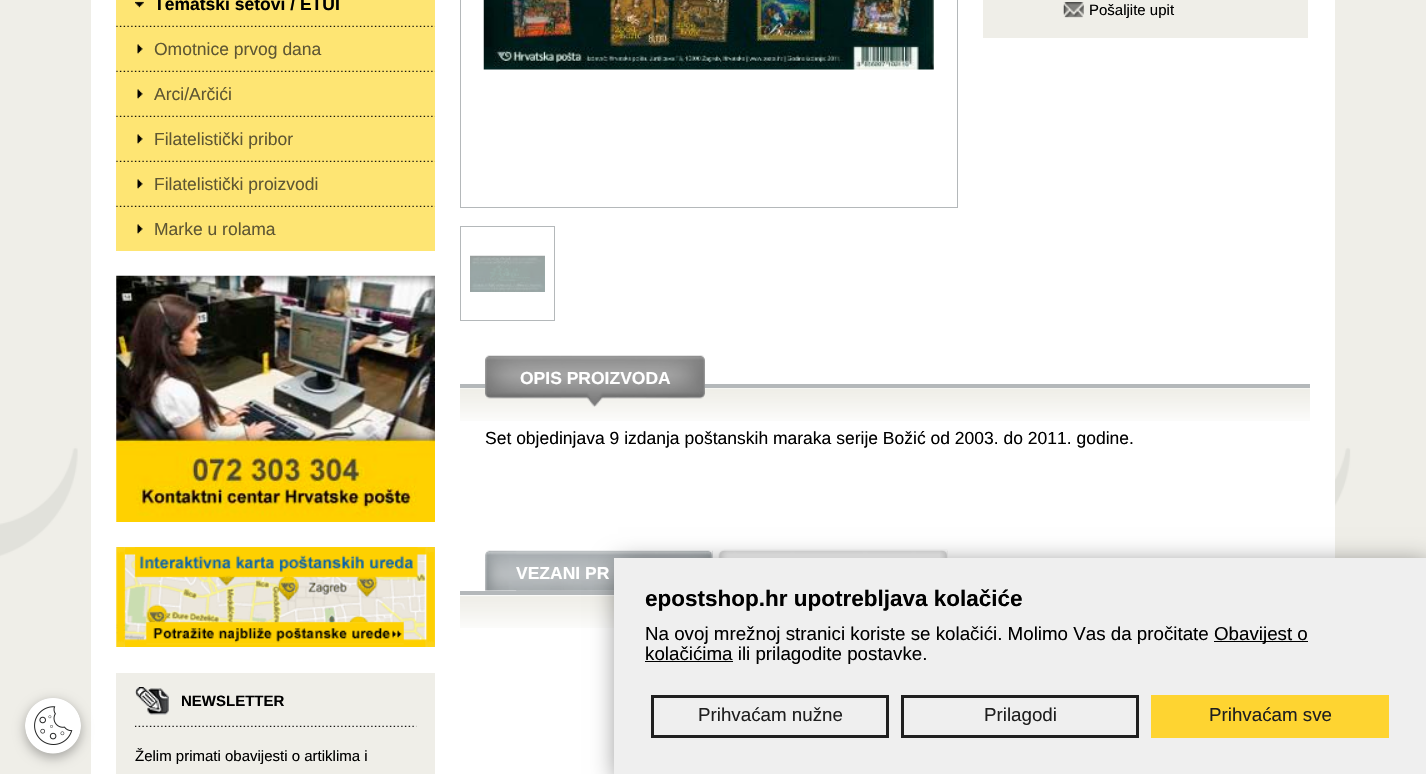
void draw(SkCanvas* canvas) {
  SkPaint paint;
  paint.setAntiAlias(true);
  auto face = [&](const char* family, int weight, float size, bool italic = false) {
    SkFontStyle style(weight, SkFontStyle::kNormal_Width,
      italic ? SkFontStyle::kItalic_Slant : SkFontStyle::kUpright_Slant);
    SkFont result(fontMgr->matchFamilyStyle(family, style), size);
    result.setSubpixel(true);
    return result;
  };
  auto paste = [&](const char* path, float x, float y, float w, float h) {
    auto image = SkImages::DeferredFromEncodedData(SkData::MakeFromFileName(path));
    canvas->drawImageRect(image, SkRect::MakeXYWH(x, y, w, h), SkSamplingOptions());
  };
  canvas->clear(0xffffffff);
  paste("img/1.png", 0, 0, 1426, 774);
  paint.setColor(0xffffffff);
  canvas->drawRect(SkRect::MakeXYWH(91, 0, 1244, 774), paint);
  paint.setColor(0xfffee573);
  canvas->drawRect(SkRect::MakeXYWH(116, 0, 319, 251), paint);
  paste("img/2.png", 135, 1, 9, 7);
  paste("img/3.png", 116, 25, 319, 2);
  paste("img/4.png", 137, 44, 6, 10);
  paste("img/3.png", 116, 70, 319, 2);
  paste("img/4.png", 137, 89, 6, 10);
  paste("img/3.png", 116, 115, 319, 2);
  paste("img/4.png", 137, 134, 6, 10);
  paste("img/3.png", 116, 160, 319, 2);
  paste("img/4.png", 137, 179, 6, 10);
  paste("img/3.png", 116, 205, 319, 2);
  paste("img/4.png", 137, 224, 6, 10);
  paste("img/5.png", 116, 275, 319, 247);
  paste("img/6.png", 116, 547, 319, 100);
  paint.setColor(0xffefeee8);
  canvas->drawRect(SkRect::MakeXYWH(116, 673, 319, 101), paint);
  paste("img/7.png", 135, 725, 282, 2);
  paste("img/8.png", 135, 687, 34, 28);
  paint.setStroke(true);
  paint.setStrokeWidth(1);
  paint.setColor(0xffb4b8ba);
  canvas->drawRect(SkRect::MakeXYWH(460.5f, -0.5f, 497, 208), paint);
  paste("img/9.png", 483, 0, 451, 70);
  paint.setStroke(false);
  paint.setColor(0xffefeee8);
  canvas->drawRect(SkRect::MakeXYWH(983, 0, 325, 38), paint);
  paste("img/10.png", 1063, 2, 21, 16);
  paint.setStroke(true);
  paint.setColor(0xffb4b8ba);
  canvas->drawRect(SkRect::MakeXYWH(460.5f, 226.5f, 94, 94), paint);
  paste("img/11.png", 470, 255, 75, 37);
  paste("img/12.png", 460, 388, 850, 33);
  paint.setStroke(false);
  canvas->drawRect(SkRect::MakeXYWH(460, 384, 850, 4), paint);
  paste("img/13.png", 485, 355, 220, 52);
  paste("img/14.png", 718, 549, 230, 9);
  paste("img/15.png", 940, 550, 8, 8);
  paste("img/16.png", 485, 550, 228, 41);
  paste("img/17.png", 516, 550, 197, 41);
  paste("img/18.png", 460, 595, 154, 33);
  canvas->drawRect(SkRect::MakeXYWH(460, 591, 154, 4), paint);
  paint.setColor(0x4d000000);
  paint.setMaskFilter(SkMaskFilter::MakeBlur(kNormal_SkBlurStyle, 6));
  canvas->drawRoundRect(SkRect::MakeXYWH(25, 701, 56, 57), 28, 28, paint);
  paint.setMaskFilter(nullptr);
  paste("img/19.png", 25, 698, 56, 56);
  paint.setColor(0x80000000);
  paint.setMaskFilter(SkMaskFilter::MakeBlur(kNormal_SkBlurStyle, 12.5f));
  canvas->drawRect(SkRect::MakeXYWH(618, 564, 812, 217), paint);
  paint.setMaskFilter(nullptr);
  {
    const struct { float x, y, w, h; SkColor color; } items[] = {
      {614, 558, 812, 216, 0xffefefef},
      {1214, 641, 94, 1, 0xff000000},
      {645, 661, 88, 1, 0xff000000},
    };
    for (auto [x, y, w, h, color] : items) {
      paint.setColor(color);
      canvas->drawRect(SkRect::MakeXYWH(x, y, w, h), paint);
    }
  }
  paint.setStroke(true);
  paint.setStrokeWidth(3);
  paint.setColor(0xff1f1f1f);
  canvas->drawRect(SkRect::MakeXYWH(652.5f, 696.5f, 235, 40), paint);
  canvas->drawRect(SkRect::MakeXYWH(902.5f, 696.5f, 235, 40), paint);
  paint.setStroke(false);
  paint.setColor(0xfffed431);
  canvas->drawRect(SkRect::MakeXYWH(1151, 695, 238, 43), paint);
  auto f0 = face("Liberation Sans", 700, 17.5f);
  paint.setColor(0xff000000);
  canvas->drawString("Tematski setovi / ETUI", 154, 10, f0, paint);
  auto f1 = face("Liberation Sans", 400, 17.5f);
  paint.setColor(0xff5f5733);
  {
    const struct { const char* s; float x, y; } items[] = {
      {"Omotnice prvog dana", 154, 55},
      {"Arci/Arčići", 154, 100},
      {"Filatelistički pribor", 154, 145},
      {"Filatelistički proizvodi", 154, 190},
      {"Marke u rolama", 154, 235},
    };
    for (auto [s, x, y] : items) {
      canvas->drawString(s, x, y, f1, paint);
    }
  }
  auto f2 = face("Liberation Sans", 700, 15);
  paint.setColor(0xff000000);
  canvas->drawString("NEWSLETTER", 181, 706, f2, paint);
  auto f3 = face("Liberation Sans", 400, 15);
  canvas->drawString("Želim primati obavijesti o artiklima i", 135, 761, f3, paint);
  canvas->drawString("Pošaljite upit", 1089, 15, f3, paint);
  paint.setColor(0xffffffff);
  canvas->drawString("OPIS PROIZVODA", 520, 384, f0, paint);
  paint.setColor(0xff000000);
  canvas->drawString("Set objedinjava 9 izdanja poštanskih maraka serije Božić od 2003. do 2011. godine.", 485, 444, f1, paint);
  paint.setColor(0xffffffff);
  canvas->drawString("VEZANI PR", 516, 579, f0, paint);
  auto f4 = face("Liberation Sans", 700, 22.5f);
  paint.setColor(0xff000000);
  canvas->drawString("epostshop.hr upotrebljava kolačiće", 645, 606, f4, paint);
  auto f5 = face("Liberation Sans", 400, 18.75f);
  {
    const struct { const char* s; float x, y; } items[] = {
      {"Na ovoj mrežnoj stranici koriste se kolačići. Molimo Vas da pročitate", 645, 640},
      {"Obavijest o", 1214, 640},
      {"kolačićima ili prilagodite postavke.", 645, 660},
    };
    for (auto [s, x, y] : items) {
      canvas->drawString(s, x, y, f5, paint);
    }
  }
  paint.setColor(0xff1f1f1f);
  {
    const struct { const char* s; float x, y; } items[] = {
      {"Prihvaćam nužne", 698, 721},
      {"Prilagodi", 984, 721},
      {"Prihvaćam sve", 1209, 721},
    };
    for (auto [s, x, y] : items) {
      canvas->drawString(s, x, y, f5, paint);
    }
  }
}
